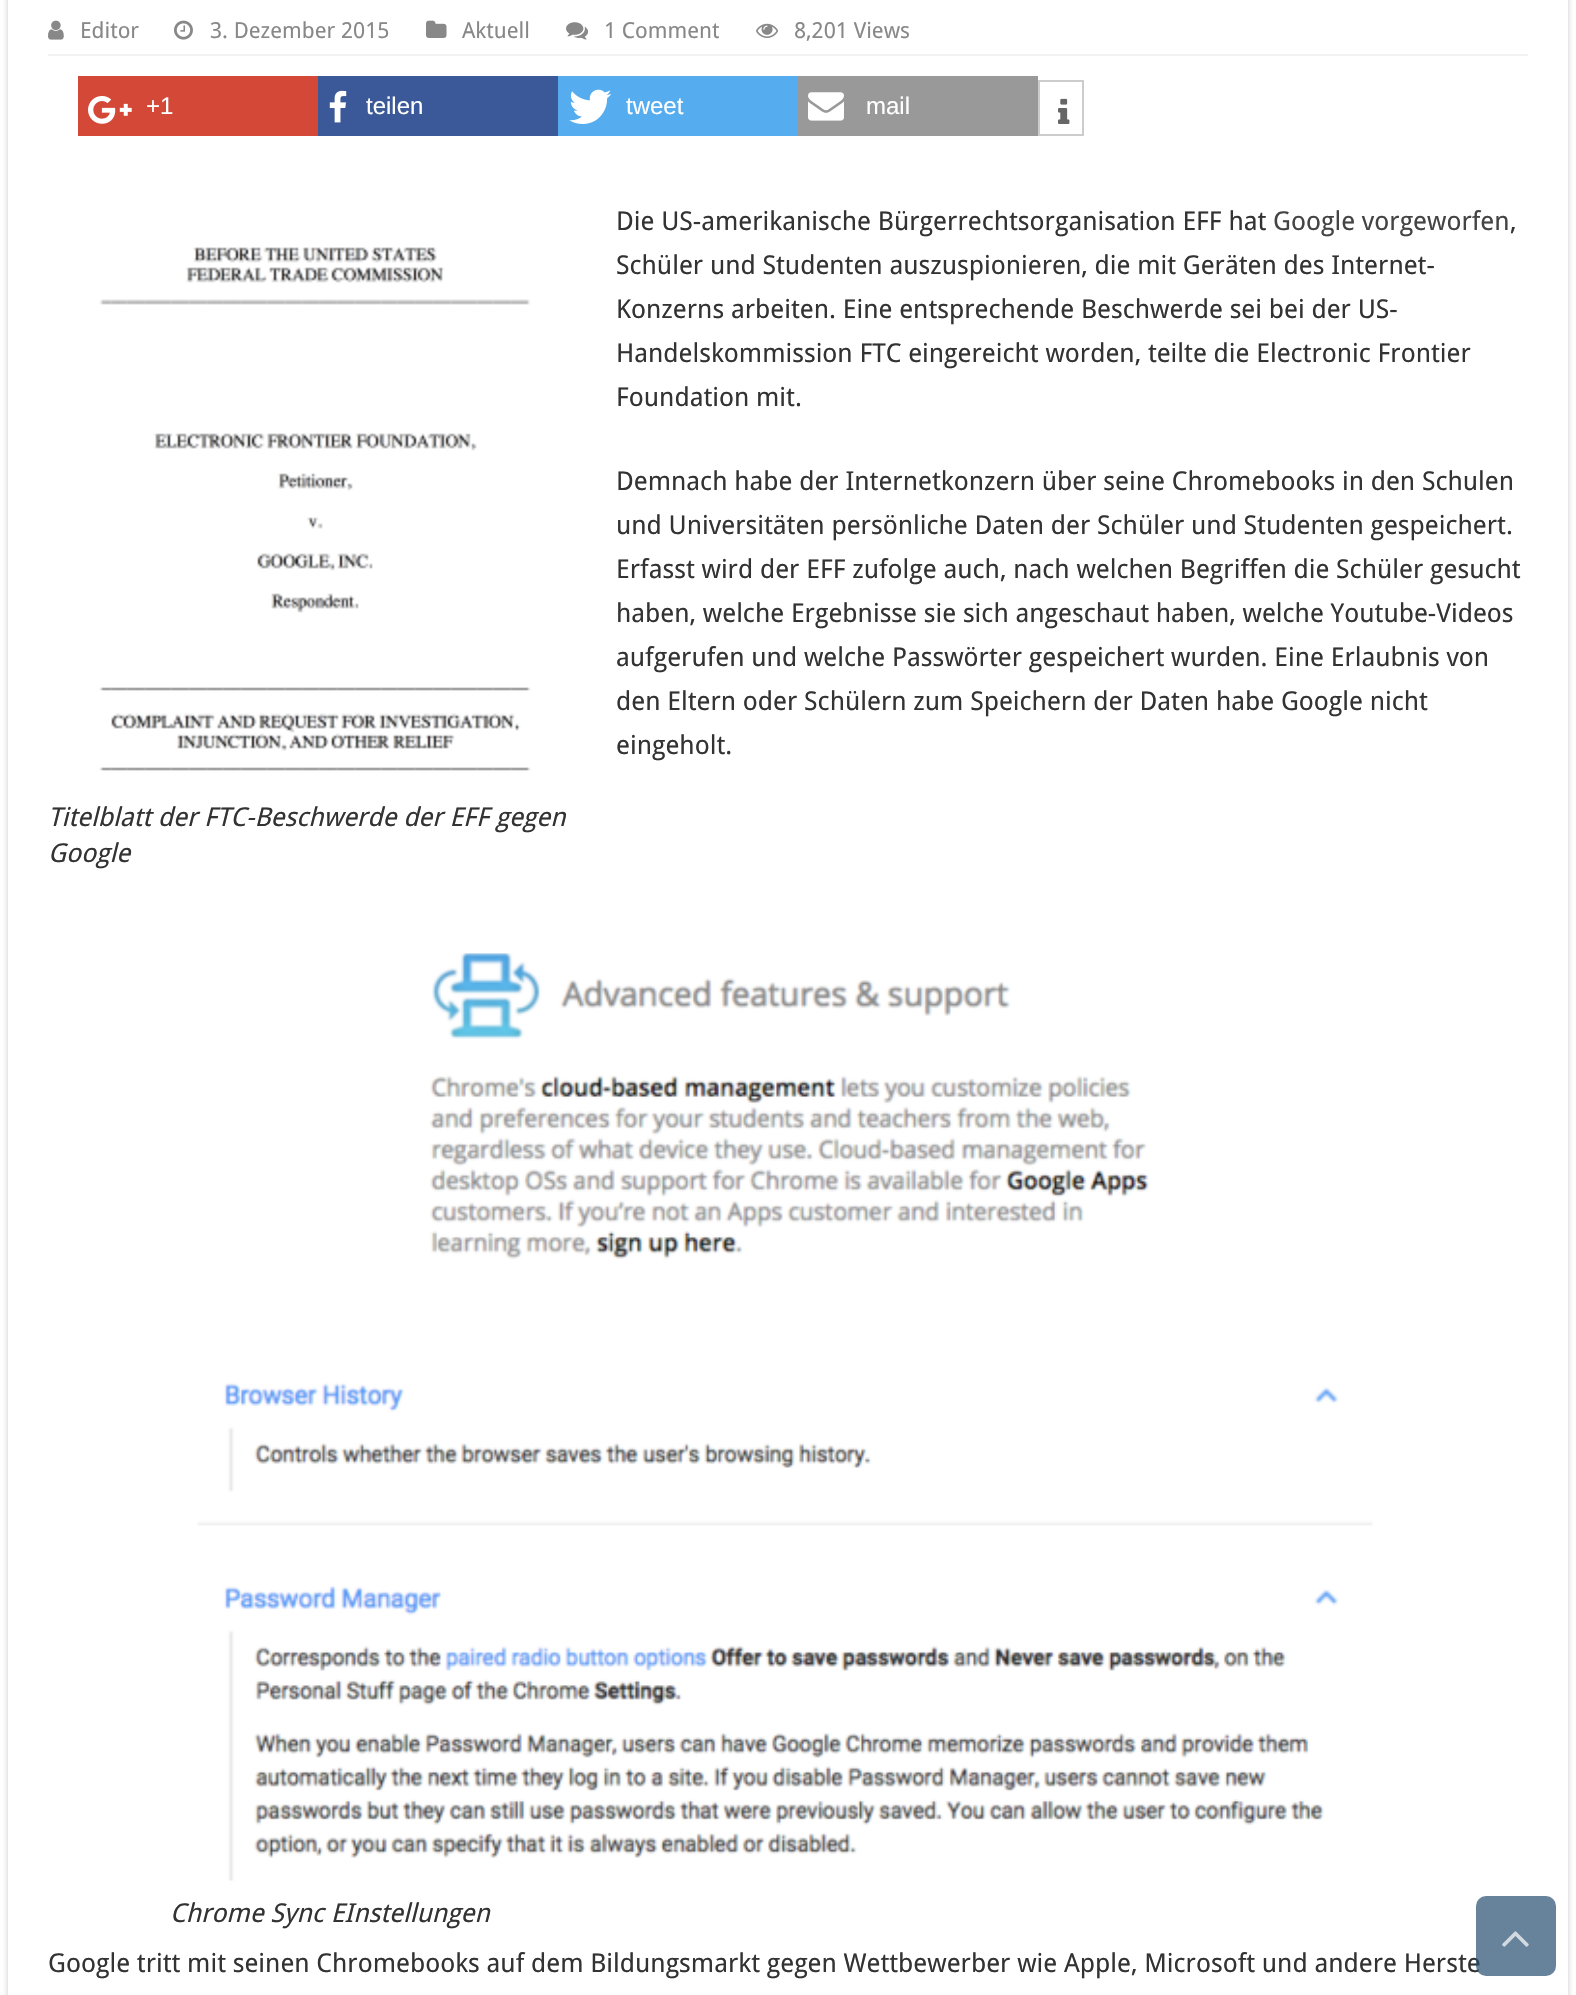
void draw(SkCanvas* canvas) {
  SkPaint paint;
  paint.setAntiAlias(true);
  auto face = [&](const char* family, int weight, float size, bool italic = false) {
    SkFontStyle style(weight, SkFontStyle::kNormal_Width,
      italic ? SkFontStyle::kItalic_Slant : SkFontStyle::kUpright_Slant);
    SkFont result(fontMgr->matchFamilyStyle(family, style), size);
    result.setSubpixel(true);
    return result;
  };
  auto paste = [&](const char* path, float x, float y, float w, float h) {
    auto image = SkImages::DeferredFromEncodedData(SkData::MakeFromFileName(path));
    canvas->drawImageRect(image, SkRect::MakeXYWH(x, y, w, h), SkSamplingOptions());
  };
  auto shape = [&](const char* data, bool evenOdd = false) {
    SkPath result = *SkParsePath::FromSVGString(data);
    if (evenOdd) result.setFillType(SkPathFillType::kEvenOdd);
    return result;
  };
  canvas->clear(0xffffffff);
  canvas->save();
  canvas->clipPath(shape("M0 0H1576V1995H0ZM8-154H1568V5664H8Z", true), true);
  paint.setColor(0xffcacaca);
  paint.setMaskFilter(SkMaskFilter::MakeBlur(kNormal_SkBlurStyle, 3));
  canvas->drawRect(SkRect::MakeXYWH(8, -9, 1560, 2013), paint);
  paint.setMaskFilter(nullptr);
  canvas->restore();
  paint.setColor(0xfff2f2f2);
  canvas->drawRect(SkRect::MakeXYWH(48, 54, 1480, 2), paint);
  paste("img/1.png", 48, 20, 16, 20);
  paste("img/2.png", 174, 20, 19, 20);
  paste("img/3.png", 426, 20, 21, 18);
  paste("img/4.png", 566, 22, 23, 18);
  paste("img/5.png", 756, 23, 22, 15);
  paint.setColor(0xffd34836);
  canvas->drawRect(SkRect::MakeXYWH(78, 76, 240, 60), paint);
  paste("img/6.png", 88, 96, 44, 28);
  paint.setColor(0xff3b5998);
  canvas->drawRect(SkRect::MakeXYWH(318, 76, 240, 60), paint);
  paste("img/7.png", 329, 90, 18, 33);
  paint.setColor(0xff55acee);
  canvas->drawRect(SkRect::MakeXYWH(558, 76, 240, 60), paint);
  paste("img/8.png", 569, 89, 43, 35);
  paint.setColor(0xff999999);
  canvas->drawRect(SkRect::MakeXYWH(798, 76, 240, 60), paint);
  paste("img/9.png", 808, 92, 36, 29);
  paint.setStroke(true);
  paint.setStrokeWidth(2);
  paint.setColor(0xffcccccc);
  canvas->drawRect(SkRect::MakeXYWH(1039, 81, 44, 54), paint);
  paste("img/10.png", 1058, 98, 12, 26);
  paste("img/11.png", 99, 247, 432, 524);
  paste("img/12.png", 197, 953, 1176, 928);
  auto f0 = face("Droid Sans", 400, 22);
  paint.setStroke(false);
  paint.setColor(0xff888888);
  {
    const struct { const char* s; float x, y; } items[] = {
      {"Editor", 80, 38},
      {"3. Dezember 2015", 210, 38},
      {"Aktuell", 462, 38},
      {"1 Comment", 604, 38},
      {"8,201 Views", 794, 38},
    };
    for (auto [s, x, y] : items) {
      canvas->drawString(s, x, y, f0, paint);
    }
  }
  auto f1 = face("Liberation Sans", 400, 24);
  paint.setColor(0xffffffff);
  {
    const struct { const char* s; float x, y; } items[] = {
      {"+1", 146, 114},
      {"teilen", 366, 114},
      {"tweet", 626, 114},
      {"mail", 866, 114},
    };
    for (auto [s, x, y] : items) {
      canvas->drawString(s, x, y, f1, paint);
    }
  }
  auto f2 = face("Droid Sans", 400, 26);
  paint.setColor(0xff333333);
  canvas->drawString("Die US-amerikanische Bürgerrechtsorganisation EFF hat", 616, 230, f2, paint);
  paint.setColor(0xff444444);
  canvas->drawString("Google vorgeworfen", 1273, 230, f2, paint);
  paint.setColor(0xff333333);
  {
    const struct { const char* s; float x, y; } items[] = {
      {",", 1510, 230},
      {"Schüler und Studenten auszuspionieren, die mit Geräten des Internet-", 616, 274},
      {"Konzerns arbeiten. Eine entsprechende Beschwerde sei bei der US-", 616, 318},
      {"Handelskommission FTC eingereicht worden, teilte die Electronic Frontier", 616, 362},
      {"Foundation mit.", 616, 406},
      {"Demnach habe der Internetkonzern über seine Chromebooks in den Schulen", 616, 490},
      {"und Universitäten persönliche Daten der Schüler und Studenten gespeichert.", 616, 534},
      {"Erfasst wird der EFF zufolge auch, nach welchen Begriffen die Schüler gesucht", 616, 578},
      {"haben, welche Ergebnisse sie sich angeschaut haben, welche Youtube-Videos", 616, 622},
      {"aufgerufen und welche Passwörter gespeichert wurden. Eine Erlaubnis von", 616, 666},
      {"den Eltern oder Schülern zum Speichern der Daten habe Google nicht", 616, 710},
      {"eingeholt.", 616, 754},
    };
    for (auto [s, x, y] : items) {
      canvas->drawString(s, x, y, f2, paint);
    }
  }
  auto f3 = face("Droid Sans", 400, 26, true);
  {
    const struct { const char* s; float x, y; } items[] = {
      {"Titelblatt der FTC-Beschwerde der EFF gegen", 48, 826},
      {"Google", 48, 862},
      {"Chrome Sync EInstellungen", 170, 1922},
    };
    for (auto [s, x, y] : items) {
      canvas->drawString(s, x, y, f3, paint);
    }
  }
  canvas->drawString("Google tritt mit seinen Chromebooks auf dem Bildungsmarkt gegen Wettbewerber wie Apple, Microsoft und andere Herste", 48, 1972, f2, paint);
  paint.setColor(0xb3264f71);
  canvas->drawRoundRect(SkRect::MakeXYWH(1476, 1896, 80, 80), 10, 10, paint);
  paste("img/13.png", 1502, 1931, 27, 16);
}
